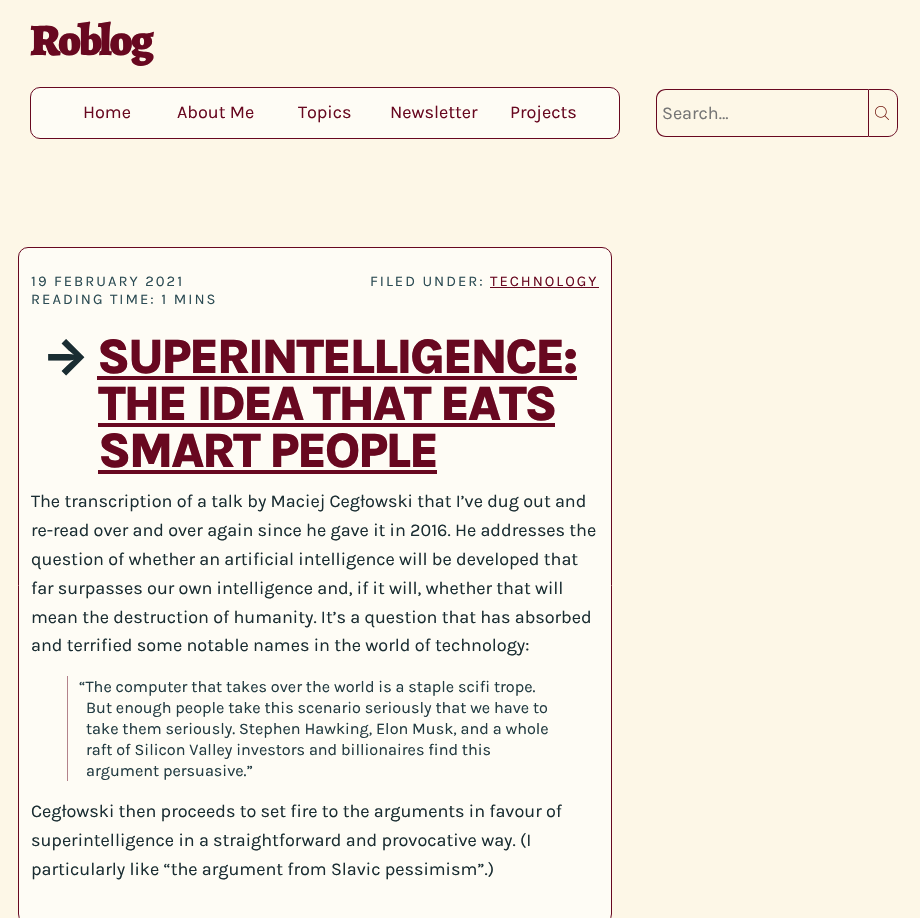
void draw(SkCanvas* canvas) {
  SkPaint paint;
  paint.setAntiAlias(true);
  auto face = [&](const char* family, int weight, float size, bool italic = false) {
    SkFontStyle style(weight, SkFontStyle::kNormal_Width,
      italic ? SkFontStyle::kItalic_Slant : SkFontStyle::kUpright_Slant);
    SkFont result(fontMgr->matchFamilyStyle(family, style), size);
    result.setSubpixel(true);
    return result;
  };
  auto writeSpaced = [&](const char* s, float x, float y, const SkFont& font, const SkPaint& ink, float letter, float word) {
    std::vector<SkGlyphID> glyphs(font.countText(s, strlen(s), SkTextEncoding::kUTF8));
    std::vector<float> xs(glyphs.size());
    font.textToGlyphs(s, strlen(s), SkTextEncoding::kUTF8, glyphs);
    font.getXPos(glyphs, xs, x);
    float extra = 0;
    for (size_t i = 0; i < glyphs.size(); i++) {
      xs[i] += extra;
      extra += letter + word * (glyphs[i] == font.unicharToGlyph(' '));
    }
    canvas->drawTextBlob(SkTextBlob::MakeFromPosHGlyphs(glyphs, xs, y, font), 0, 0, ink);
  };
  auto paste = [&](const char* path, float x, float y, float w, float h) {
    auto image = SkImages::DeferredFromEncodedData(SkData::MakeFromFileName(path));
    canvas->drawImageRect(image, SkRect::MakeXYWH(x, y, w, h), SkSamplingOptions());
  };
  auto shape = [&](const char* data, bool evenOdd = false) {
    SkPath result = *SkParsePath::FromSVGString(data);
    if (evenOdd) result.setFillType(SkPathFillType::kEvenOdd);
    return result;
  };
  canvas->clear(0xfffdf7e7);
  paint.setColor(0xfffefcf5);
  canvas->drawRoundRect(SkRect::MakeXYWH(30.5f, 87.5f, 589, 51), 9.5f, 9.5f, paint);
  paint.setStroke(true);
  paint.setStrokeWidth(1);
  paint.setColor(0xff680820);
  canvas->drawRoundRect(SkRect::MakeXYWH(30.5f, 87.5f, 589, 51), 9.5f, 9.5f, paint);
  paint.setStroke(false);
  canvas->drawPath(shape("M666 89H868V137H666C660 137 656 133 656 127V99C656 93 660 89 666 89ZM666 90H868V136H666C661 136 657 132 657 127V99C657 94 661 90 666 90Z", true), paint);
  paint.setStroke(true);
  canvas->drawPath(shape("M868.5 89.5H888C893 89.5 897.5 94 897.5 99V127C897.5 132 893 136.5 888 136.5H868.5Z"), paint);
  paste("img/1.png", 875, 106, 14, 14);
  paint.setStroke(false);
  paint.setColor(0xfffefcf5);
  canvas->drawRoundRect(SkRect::MakeXYWH(18.5f, 247.5f, 593, 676), 9.5f, 9.5f, paint);
  paint.setStroke(true);
  paint.setColor(0xff680820);
  canvas->drawRoundRect(SkRect::MakeXYWH(18.5f, 247.5f, 593, 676), 9.5f, 9.5f, paint);
  paint.setStroke(false);
  {
    const struct { float x, y, w, h; SkColor color; } items[] = {
      {490, 287, 109, 1, 0xff680820},
      {97, 376, 480, 4, 0xff680820},
      {98, 423, 457, 4, 0xff680820},
      {98, 470, 339, 4, 0xff680820},
      {67, 676, 1, 105, 0xffb3828b},
    };
    for (auto [x, y, w, h, color] : items) {
      paint.setColor(color);
      canvas->drawRect(SkRect::MakeXYWH(x, y, w, h), paint);
    }
  }
  auto f0 = face("Alegreya", 900, 45);
  paint.setColor(0xff680820);
  writeSpaced("Roblog", 30, 55, f0, paint, -3, 0);
  auto f1 = face("Karla", 400, 18);
  {
    const struct { const char* s; float x, y; } items[] = {
      {"Home", 83, 118},
      {"About Me", 177, 118},
      {"Topics", 298, 118},
      {"Newsletter", 390, 118},
      {"Projects", 510, 118},
    };
    for (auto [s, x, y] : items) {
      canvas->drawString(s, x, y, f1, paint);
    }
  }
  paint.setColor(0xff757575);
  canvas->drawString("Search…", 662, 119, f1, paint);
  auto f2 = face("Karla", 400, 14.8f);
  paint.setColor(0xff2c4c54);
  writeSpaced("19 FEBRUARY 2021", 31, 286, f2, paint, 2, 0);
  writeSpaced("FILED UNDER:", 370, 286, f2, paint, 2, 0);
  paint.setColor(0xff680820);
  writeSpaced("TECHNOLOGY", 490, 286, f2, paint, 2, 0);
  paint.setColor(0xff2c4c54);
  writeSpaced("READING TIME: 1 MINS", 31, 304, f2, paint, 2, 0);
  auto f3 = face("Inter", 800, 49.5f);
  paint.setColor(0xff1a2d32);
  writeSpaced("→", 42, 373, f3, paint, -2.5f, 0);
  auto f4 = face("Karla", 800, 49.5f);
  paint.setColor(0xff680820);
  {
    const struct { const char* s; float x, y; } items[] = {
      {"SUPERINTELLIGENCE:", 97, 373},
      {"THE IDEA THAT EATS", 98, 420},
      {"SMART PEOPLE", 98, 467},
    };
    for (auto [s, x, y] : items) {
      writeSpaced(s, x, y, f4, paint, -2.5f, 0);
    }
  }
  paint.setColor(0xff1a2d32);
  {
    const struct { const char* s; float x, y; } items[] = {
      {"The transcription of a talk by Maciej Cegłowski that I’ve dug out and", 31, 507},
      {"re-read over and over again since he gave it in 2016. He addresses the", 31, 536},
      {"question of whether an artificial intelligence will be developed that", 31, 565},
      {"far surpasses our own intelligence and, if it will, whether that will", 31, 594},
      {"mean the destruction of humanity. It’s a question that has absorbed", 31, 623},
      {"and terrified some notable names in the world of technology:", 31, 651},
    };
    for (auto [s, x, y] : items) {
      canvas->drawString(s, x, y, f1, paint);
    }
  }
  auto f5 = face("Karla", 400, 16.2f);
  paint.setColor(0xff233c43);
  {
    const struct { const char* s; float x, y; } items[] = {
      {"“The computer that takes over the world is a staple scifi trope.", 79, 692},
      {"But enough people take this scenario seriously that we have to", 86, 713},
      {"take them seriously. Stephen Hawking, Elon Musk, and a whole", 86, 734},
      {"raft of Silicon Valley investors and billionaires find this", 86, 755},
      {"argument persuasive.”", 86, 776},
    };
    for (auto [s, x, y] : items) {
      canvas->drawString(s, x, y, f5, paint);
    }
  }
  paint.setColor(0xff1a2d32);
  {
    const struct { const char* s; float x, y; } items[] = {
      {"Cegłowski then proceeds to set fire to the arguments in favour of", 31, 817},
      {"superintelligence in a straightforward and provocative way. (I", 31, 846},
      {"particularly like “the argument from Slavic pessimism”.)", 31, 875},
    };
    for (auto [s, x, y] : items) {
      canvas->drawString(s, x, y, f1, paint);
    }
  }
}
